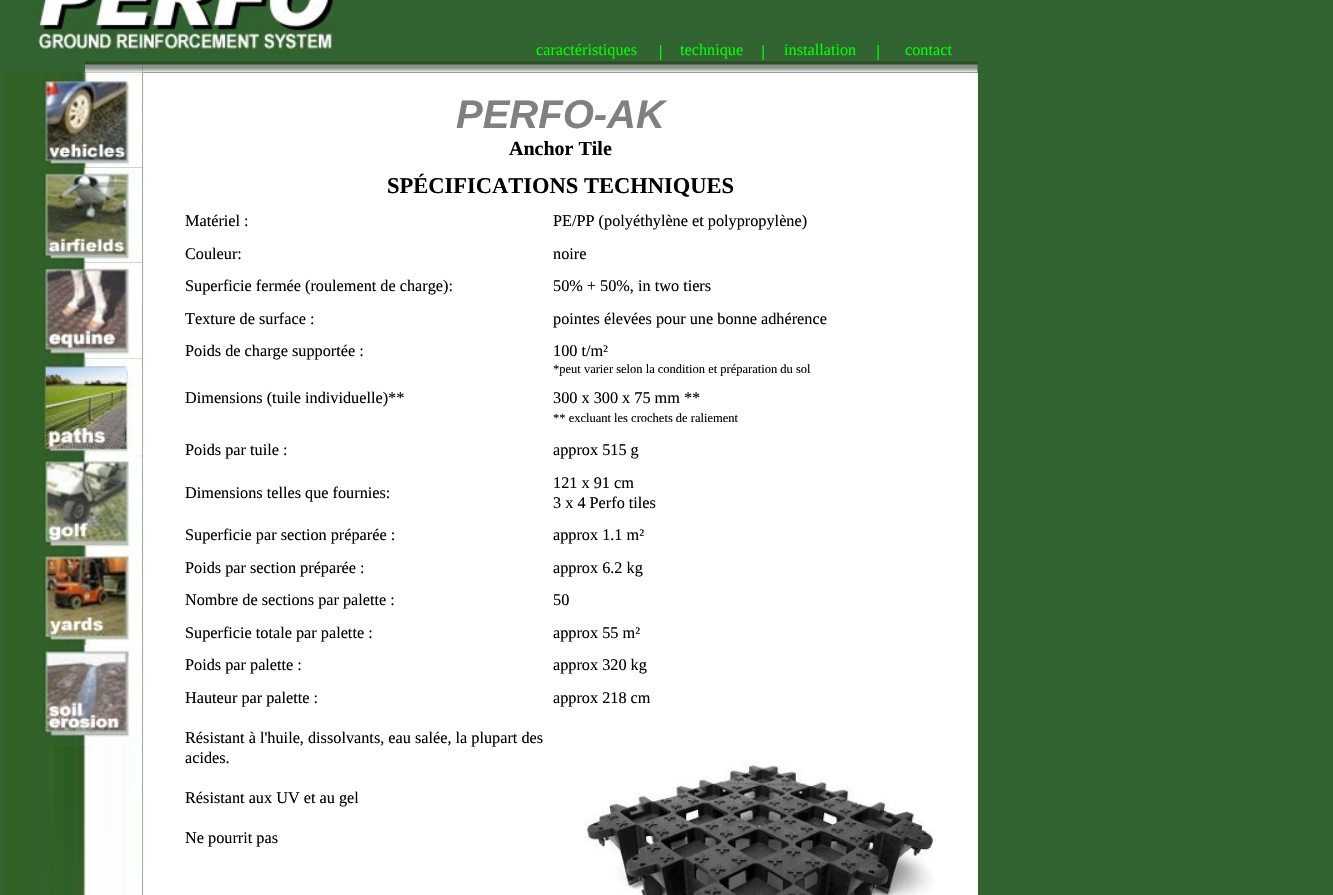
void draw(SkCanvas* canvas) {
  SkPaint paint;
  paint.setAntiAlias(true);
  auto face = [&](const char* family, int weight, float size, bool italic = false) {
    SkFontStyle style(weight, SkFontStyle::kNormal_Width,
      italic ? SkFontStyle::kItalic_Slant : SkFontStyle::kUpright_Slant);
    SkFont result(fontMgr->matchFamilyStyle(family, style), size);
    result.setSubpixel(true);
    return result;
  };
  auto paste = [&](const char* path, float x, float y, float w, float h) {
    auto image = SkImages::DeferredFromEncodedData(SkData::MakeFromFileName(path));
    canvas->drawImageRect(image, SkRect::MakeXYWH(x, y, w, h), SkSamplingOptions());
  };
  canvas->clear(0xff326431);
  paste("img/1.png", 31, 0, 308, 55);
  paste("img/2.png", 660, 45, 2, 15);
  paste("img/3.png", 762, 45, 2, 15);
  paste("img/3.png", 877, 45, 2, 15);
  paste("img/4.png", 83, 60, 60, 13);
  paste("img/5.png", 142, 61, 836, 12);
  paste("img/6.png", 4, 72, 139, 96);
  paste("img/7.png", 4, 167, 139, 96);
  paste("img/8.png", 4, 262, 139, 97);
  paste("img/9.png", 4, 358, 139, 97);
  paste("img/10.png", 4, 455, 139, 95);
  paste("img/11.png", 4, 550, 139, 95);
  paste("img/12.png", 4, 645, 139, 100);
  paste("img/13.png", 4, 745, 139, 150);
  paint.setColor(0xffffffff);
  canvas->drawRect(SkRect::MakeXYWH(143, 73, 835, 822), paint);
  paste("img/14.png", 585, 760, 350, 135);
  auto f0 = face("Liberation Serif", 400, 16.25f);
  paint.setColor(0xff00ff00);
  {
    const struct { const char* s; float x, y; } items[] = {
      {"caractéristiques", 536, 55},
      {"technique", 680, 55},
      {"installation", 784, 55},
      {"contact", 905, 55},
    };
    for (auto [s, x, y] : items) {
      canvas->drawString(s, x, y, f0, paint);
    }
  }
  auto f1 = face("Liberation Sans", 700, 40, true);
  paint.setColor(0xff808080);
  canvas->drawString("PERFO-AK", 456, 128, f1, paint);
  auto f2 = face("Liberation Serif", 700, 20);
  paint.setColor(0xff000000);
  canvas->drawString("Anchor Tile", 509, 155, f2, paint);
  auto f3 = face("Liberation Serif", 700, 22.5f);
  canvas->drawString("SPÉCIFICATIONS TECHNIQUES", 387, 193, f3, paint);
  {
    const struct { const char* s; float x, y; } items[] = {
      {"Matériel :", 185, 226},
      {"PE/PP (polyéthylène et polypropylène)", 553, 226},
      {"Couleur:", 185, 259},
      {"noire", 553, 259},
      {"Superficie fermée (roulement de charge):", 185, 291},
      {"50% + 50%, in two tiers", 553, 291},
      {"Texture de surface :", 185, 324},
      {"pointes élevées pour une bonne adhérence", 553, 324},
      {"Poids de charge supportée :", 185, 356},
      {"100 t/m²", 553, 356},
    };
    for (auto [s, x, y] : items) {
      canvas->drawString(s, x, y, f0, paint);
    }
  }
  auto f4 = face("Liberation Serif", 400, 12.5f);
  canvas->drawString("*peut varier selon la condition et préparation du sol", 553, 373, f4, paint);
  canvas->drawString("Dimensions (tuile individuelle)**", 185, 403, f0, paint);
  canvas->drawString("300 x 300 x 75 mm **", 553, 403, f0, paint);
  canvas->drawString("** excluant les crochets de raliement", 553, 422, f4, paint);
  {
    const struct { const char* s; float x, y; } items[] = {
      {"Poids par tuile :", 185, 455},
      {"approx 515 g", 553, 455},
      {"Dimensions telles que fournies:", 185, 498},
      {"121 x 91 cm", 553, 488},
      {"3 x 4 Perfo tiles", 553, 508},
      {"Superficie par section préparée :", 185, 540},
      {"approx 1.1 m²", 553, 540},
      {"Poids par section préparée :", 185, 573},
      {"approx 6.2 kg", 553, 573},
      {"Nombre de sections par palette :", 185, 605},
      {"50", 553, 605},
      {"Superficie totale par palette :", 185, 638},
      {"approx 55 m²", 553, 638},
      {"Poids par palette :", 185, 670},
      {"approx 320 kg", 553, 670},
      {"Hauteur par palette :", 185, 703},
      {"approx 218 cm", 553, 703},
      {"Résistant à l'huile, dissolvants, eau salée, la plupart des", 185, 743},
      {"acides.", 185, 763},
      {"Résistant aux UV et au gel", 185, 803},
      {"Ne pourrit pas", 185, 843},
    };
    for (auto [s, x, y] : items) {
      canvas->drawString(s, x, y, f0, paint);
    }
  }
}
